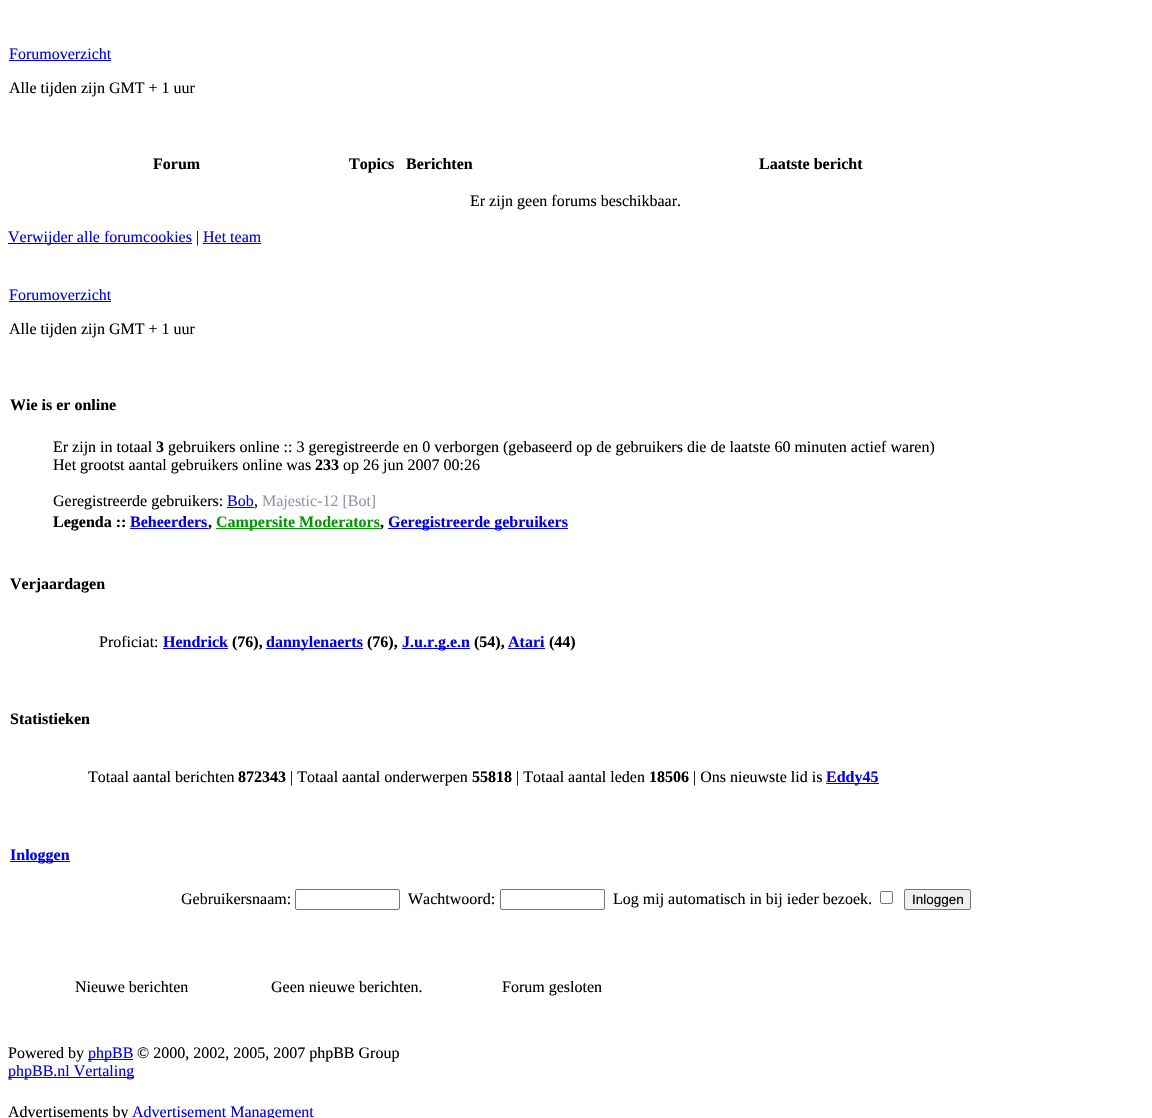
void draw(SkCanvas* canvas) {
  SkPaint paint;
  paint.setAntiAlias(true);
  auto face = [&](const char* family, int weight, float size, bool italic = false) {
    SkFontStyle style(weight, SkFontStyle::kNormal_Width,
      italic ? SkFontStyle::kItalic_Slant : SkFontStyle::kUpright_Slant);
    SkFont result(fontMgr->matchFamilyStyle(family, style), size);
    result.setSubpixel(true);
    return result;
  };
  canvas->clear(0xffffffff);
  {
    const struct { float x, y, w, h; SkColor color; } items[] = {
      {9, 60, 102, 1, 0xff0000ee},
      {8, 243, 184, 1, 0xff0000ee},
      {203, 243, 58, 1, 0xff0000ee},
      {9, 301, 102, 1, 0xff0000ee},
      {227, 507, 27, 1, 0xff0000ee},
      {130, 528, 78, 1, 0xff0000ee},
      {216, 528, 164, 1, 0xff009900},
      {388, 528, 180, 1, 0xff0000ee},
      {163, 648, 65, 1, 0xff0000ee},
      {266, 648, 97, 1, 0xff0000ee},
      {402, 648, 68, 1, 0xff0000ee},
      {508, 648, 37, 1, 0xff0000ee},
      {826, 783, 53, 1, 0xff0000ee},
      {10, 861, 60, 1, 0xff0000ee},
    };
    for (auto [x, y, w, h, color] : items) {
      paint.setColor(color);
      canvas->drawRect(SkRect::MakeXYWH(x, y, w, h), paint);
    }
  }
  paint.setStroke(true);
  paint.setStrokeWidth(1);
  paint.setColor(0xff767676);
  canvas->drawRoundRect(SkRect::MakeXYWH(295.5f, 889.5f, 104, 20), 1.5f, 1.5f, paint);
  canvas->drawRoundRect(SkRect::MakeXYWH(500.5f, 889.5f, 104, 20), 1.5f, 1.5f, paint);
  canvas->drawRoundRect(SkRect::MakeXYWH(880.5f, 891.5f, 12, 12), 1.5f, 1.5f, paint);
  paint.setStroke(false);
  paint.setColor(0xffefefef);
  canvas->drawRoundRect(SkRect::MakeXYWH(904.5f, 889.5f, 66, 20), 1.5f, 1.5f, paint);
  paint.setStroke(true);
  paint.setColor(0xff767676);
  canvas->drawRoundRect(SkRect::MakeXYWH(904.5f, 889.5f, 66, 20), 1.5f, 1.5f, paint);
  paint.setStroke(false);
  paint.setColor(0xff0000ee);
  canvas->drawRect(SkRect::MakeXYWH(88, 1059, 45, 1), paint);
  canvas->drawRect(SkRect::MakeXYWH(8, 1077, 126, 1), paint);
  auto f0 = face("Liberation Serif", 400, 16);
  canvas->drawString("Forumoverzicht", 9, 59, f0, paint);
  paint.setColor(0xff000000);
  canvas->drawString("Alle tijden zijn GMT + 1 uur", 9, 93, f0, paint);
  auto f1 = face("Liberation Serif", 700, 16);
  {
    const struct { const char* s; float x, y; } items[] = {
      {"Forum", 153, 169},
      {"Topics", 349, 169},
      {"Berichten", 406, 169},
      {"Laatste bericht", 759, 169},
    };
    for (auto [s, x, y] : items) {
      canvas->drawString(s, x, y, f1, paint);
    }
  }
  canvas->drawString("Er zijn geen forums beschikbaar.", 470, 206, f0, paint);
  paint.setColor(0xff0000ee);
  canvas->drawString("Verwijder alle forumcookies", 8, 242, f0, paint);
  paint.setColor(0xff000000);
  canvas->drawString("|", 196, 242, f0, paint);
  paint.setColor(0xff0000ee);
  canvas->drawString("Het team", 203, 242, f0, paint);
  canvas->drawString("Forumoverzicht", 9, 300, f0, paint);
  paint.setColor(0xff000000);
  canvas->drawString("Alle tijden zijn GMT + 1 uur", 9, 334, f0, paint);
  canvas->drawString("Wie is er online", 10, 410, f1, paint);
  canvas->drawString("Er zijn in totaal", 53, 452, f0, paint);
  canvas->drawString("3", 156, 452, f1, paint);
  canvas->drawString("gebruikers online :: 3 geregistreerde en 0 verborgen (gebaseerd op de gebruikers die de laatste 60 minuten actief waren)", 168, 452, f0, paint);
  canvas->drawString("Het grootst aantal gebruikers online was", 53, 470, f0, paint);
  canvas->drawString("233", 315, 470, f1, paint);
  canvas->drawString("op 26 jun 2007 00:26", 343, 470, f0, paint);
  canvas->drawString("Geregistreerde gebruikers:", 53, 506, f0, paint);
  paint.setColor(0xff0000ee);
  canvas->drawString("Bob", 227, 506, f0, paint);
  paint.setColor(0xff000000);
  canvas->drawString(",", 254, 506, f0, paint);
  paint.setColor(0xff9e8da7);
  canvas->drawString("Majestic-12 [Bot]", 262, 506, f0, paint);
  paint.setColor(0xff000000);
  canvas->drawString("Legenda ::", 53, 527, f1, paint);
  paint.setColor(0xff0000ee);
  canvas->drawString("Beheerders", 130, 527, f1, paint);
  paint.setColor(0xff000000);
  canvas->drawString(",", 208, 527, f1, paint);
  paint.setColor(0xff009900);
  canvas->drawString("Campersite Moderators", 216, 527, f1, paint);
  paint.setColor(0xff000000);
  canvas->drawString(",", 380, 527, f1, paint);
  paint.setColor(0xff0000ee);
  canvas->drawString("Geregistreerde gebruikers", 388, 527, f1, paint);
  paint.setColor(0xff000000);
  canvas->drawString("Verjaardagen", 10, 589, f1, paint);
  canvas->drawString("Proficiat:", 99, 647, f0, paint);
  paint.setColor(0xff0000ee);
  canvas->drawString("Hendrick", 163, 647, f1, paint);
  paint.setColor(0xff000000);
  canvas->drawString("(76),", 232, 647, f1, paint);
  paint.setColor(0xff0000ee);
  canvas->drawString("dannylenaerts", 266, 647, f1, paint);
  paint.setColor(0xff000000);
  canvas->drawString("(76),", 367, 647, f1, paint);
  paint.setColor(0xff0000ee);
  canvas->drawString("J.u.r.g.e.n", 402, 647, f1, paint);
  paint.setColor(0xff000000);
  canvas->drawString("(54),", 474, 647, f1, paint);
  paint.setColor(0xff0000ee);
  canvas->drawString("Atari", 508, 647, f1, paint);
  paint.setColor(0xff000000);
  canvas->drawString("(44)", 549, 647, f1, paint);
  canvas->drawString("Statistieken", 10, 724, f1, paint);
  canvas->drawString("Totaal aantal berichten", 88, 782, f0, paint);
  canvas->drawString("872343", 238, 782, f1, paint);
  canvas->drawString("| Totaal aantal onderwerpen", 290, 782, f0, paint);
  canvas->drawString("55818", 472, 782, f1, paint);
  canvas->drawString("| Totaal aantal leden", 516, 782, f0, paint);
  canvas->drawString("18506", 649, 782, f1, paint);
  canvas->drawString("| Ons nieuwste lid is", 693, 782, f0, paint);
  paint.setColor(0xff0000ee);
  canvas->drawString("Eddy45", 826, 782, f1, paint);
  canvas->drawString("Inloggen", 10, 860, f1, paint);
  paint.setColor(0xff000000);
  {
    const struct { const char* s; float x, y; } items[] = {
      {"Gebruikersnaam:", 181, 904},
      {"Wachtwoord:", 408, 904},
      {"Log mij automatisch in bij ieder bezoek.", 613, 904},
    };
    for (auto [s, x, y] : items) {
      canvas->drawString(s, x, y, f0, paint);
    }
  }
  auto f2 = face("Liberation Sans", 400, 13.5f);
  canvas->drawString("Inloggen", 912, 904, f2, paint);
  {
    const struct { const char* s; float x, y; } items[] = {
      {"Nieuwe berichten", 75, 992},
      {"Geen nieuwe berichten.", 271, 992},
      {"Forum gesloten", 502, 992},
      {"Powered by", 8, 1058},
    };
    for (auto [s, x, y] : items) {
      canvas->drawString(s, x, y, f0, paint);
    }
  }
  paint.setColor(0xff0000ee);
  canvas->drawString("phpBB", 88, 1058, f0, paint);
  paint.setColor(0xff000000);
  canvas->drawString("© 2000, 2002, 2005, 2007 phpBB Group", 137, 1058, f0, paint);
  paint.setColor(0xff0000ee);
  canvas->drawString("phpBB.nl Vertaling", 8, 1076, f0, paint);
  paint.setColor(0xff000000);
  canvas->drawString("Advertisements by", 8, 1117, f0, paint);
  paint.setColor(0xff0000ee);
  canvas->drawString("Advertisement Management", 132, 1117, f0, paint);
}
